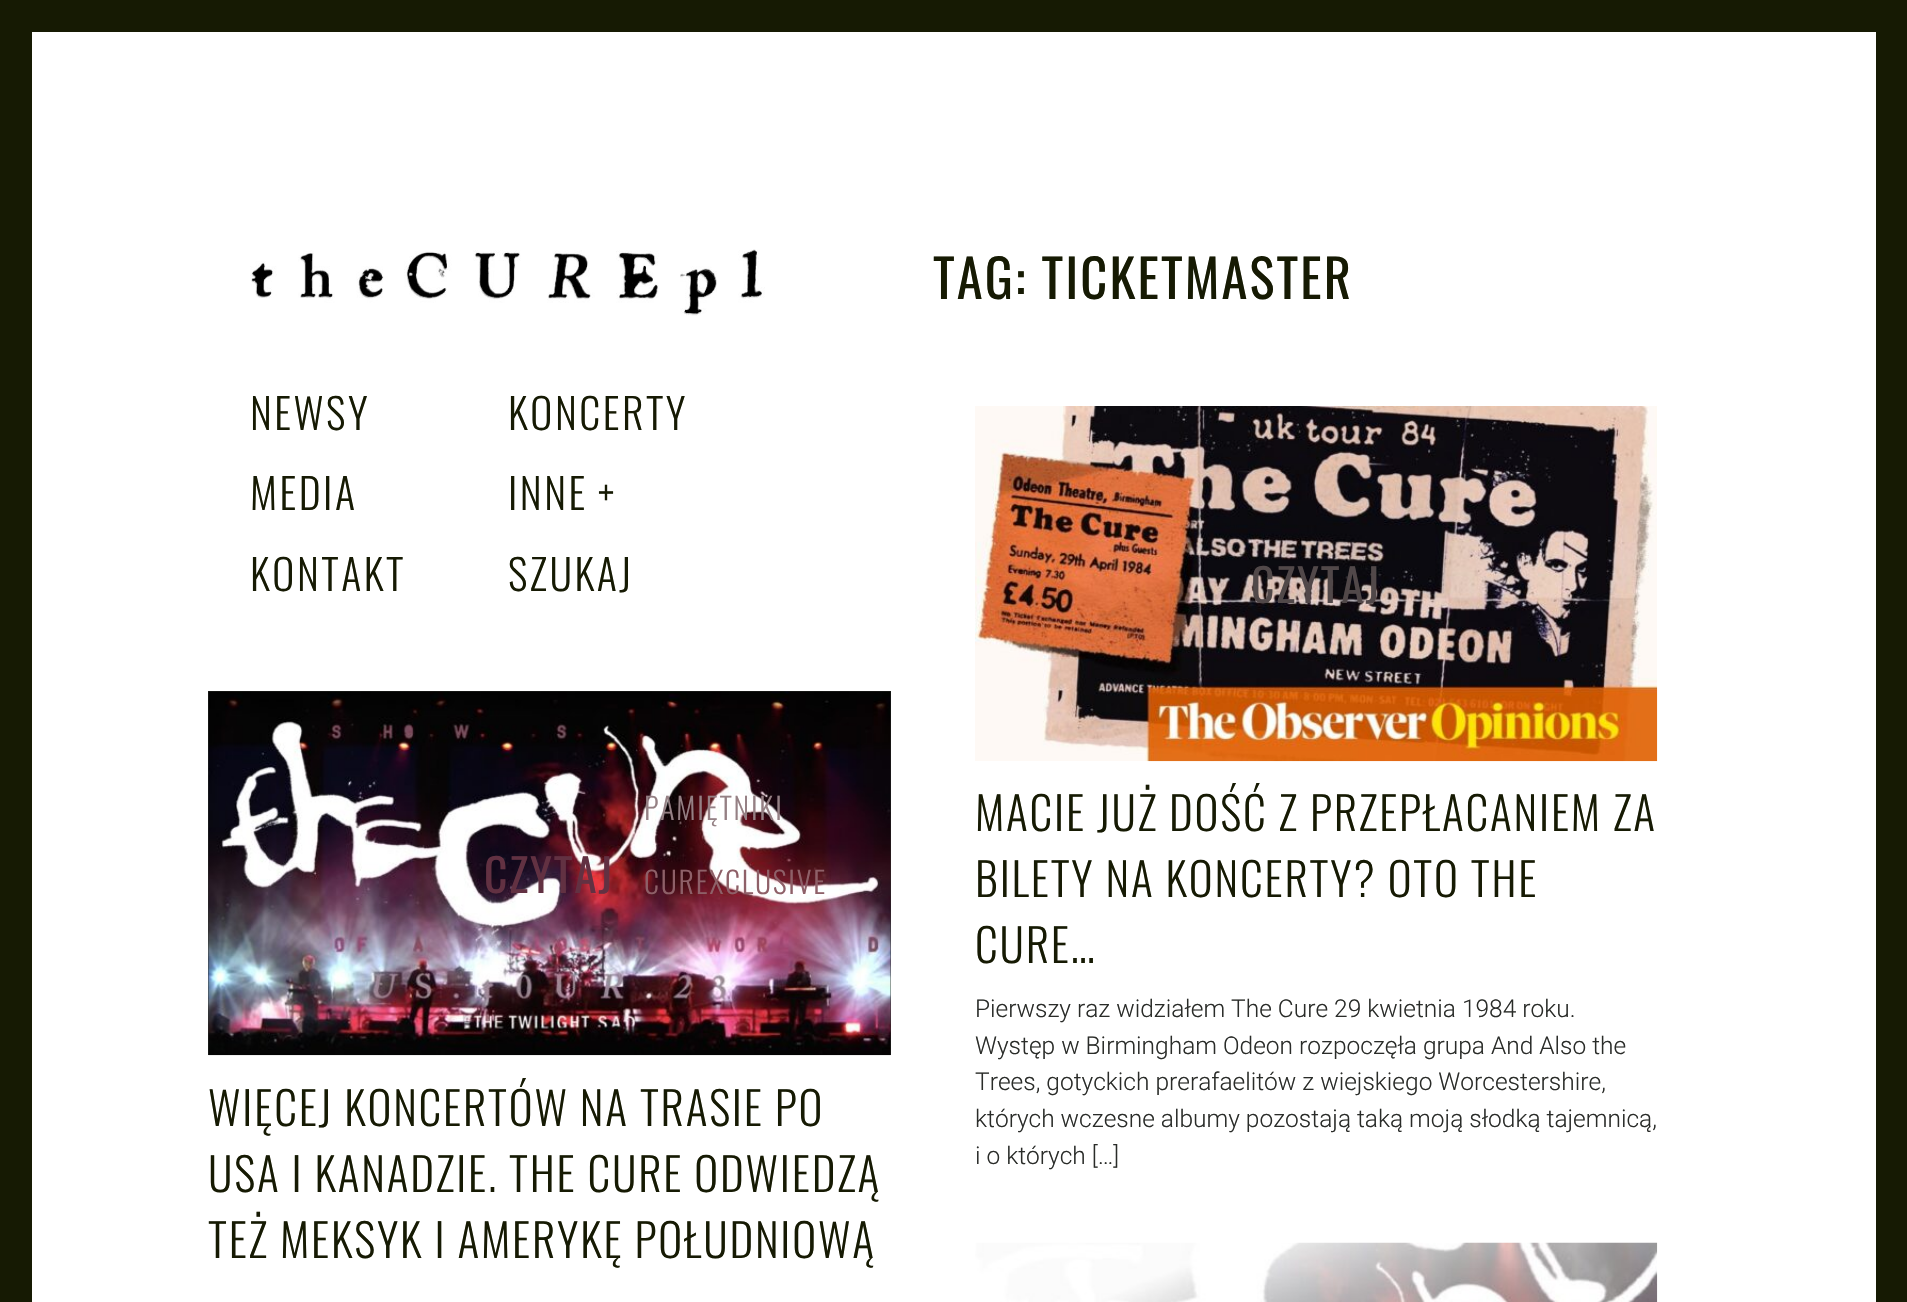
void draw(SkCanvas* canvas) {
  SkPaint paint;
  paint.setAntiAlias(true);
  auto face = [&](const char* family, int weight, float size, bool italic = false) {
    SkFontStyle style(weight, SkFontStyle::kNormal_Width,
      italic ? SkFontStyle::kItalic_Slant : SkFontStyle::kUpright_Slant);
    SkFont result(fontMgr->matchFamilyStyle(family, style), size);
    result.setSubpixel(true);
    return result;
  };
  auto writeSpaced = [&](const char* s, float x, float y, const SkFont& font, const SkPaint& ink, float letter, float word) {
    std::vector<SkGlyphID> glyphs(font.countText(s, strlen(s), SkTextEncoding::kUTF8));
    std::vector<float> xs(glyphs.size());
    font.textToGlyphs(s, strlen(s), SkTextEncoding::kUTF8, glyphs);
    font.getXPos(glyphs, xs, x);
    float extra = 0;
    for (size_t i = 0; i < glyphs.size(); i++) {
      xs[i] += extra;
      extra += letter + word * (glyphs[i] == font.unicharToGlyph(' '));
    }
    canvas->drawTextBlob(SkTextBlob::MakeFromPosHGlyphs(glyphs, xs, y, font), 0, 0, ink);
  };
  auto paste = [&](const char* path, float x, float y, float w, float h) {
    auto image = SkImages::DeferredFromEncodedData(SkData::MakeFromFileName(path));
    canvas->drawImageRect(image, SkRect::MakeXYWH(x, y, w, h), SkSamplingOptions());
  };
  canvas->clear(0xffffffff);
  {
    const struct { float x, y, w, h; SkColor color; } items[] = {
      {32, 0, 1844, 32, 0xff161a03},
      {1876, 0, 31, 1302, 0xff161a03},
      {0, 0, 32, 1302, 0xff161a03},
    };
    for (auto [x, y, w, h, color] : items) {
      paint.setColor(color);
      canvas->drawRect(SkRect::MakeXYWH(x, y, w, h), paint);
    }
  }
  paste("img/1.png", 250, 249, 515, 67);
  paste("img/2.png", 975, 406, 683, 356);
  paint.setColor(0xff2a2c29);
  canvas->drawRect(SkRect::MakeXYWH(208, 691, 683, 364), paint);
  paste("img/3.png", 208, 691, 683, 365);
  paste("img/4.png", 975, 1242, 683, 60);
  auto f0 = face("Oswald", 400, 52.5f);
  paint.setColor(0xff161a03);
  writeSpaced("TAG: TICKETMASTER", 933, 299, f0, paint, 2.1f, 0);
  auto f1 = face("Oswald", 300, 42);
  {
    const struct { const char* s; float x, y; } items[] = {
      {"NEWSY", 250, 430},
      {"KONCERTY", 508, 430},
      {"MEDIA", 250, 510},
      {"INNE", 508, 510},
      {"+", 598, 510},
    };
    for (auto [s, x, y] : items) {
      writeSpaced(s, x, y, f1, paint, 2.5f, 0);
    }
  }
  auto f2 = face("Oswald", 300, 30);
  paint.setColor(0xff958084);
  writeSpaced("PAMIĘTNIKI", 644, 820, f2, paint, 1.75f, 0);
  paint.setColor(0xff8e6068);
  writeSpaced("CUREXCLUSIVE", 644, 894, f2, paint, 1.75f, 0);
  paint.setColor(0xff161a03);
  writeSpaced("KONTAKT", 250, 591, f1, paint, 2.5f, 0);
  writeSpaced("SZUKAJ", 508, 591, f1, paint, 2.5f, 0);
  auto f3 = face("Oswald", 400, 45.5f);
  paint.setColor(0xff514849);
  writeSpaced("CZYTAJ", 1251, 603, f3, paint, 1.8f, 0);
  auto f4 = face("Oswald", 300, 45.5f);
  paint.setColor(0xff161a03);
  {
    const struct { const char* s; float x, y; } items[] = {
      {"MACIE JUŻ DOŚĆ Z PRZEPŁACANIEM ZA", 975, 831},
      {"BILETY NA KONCERTY? OTO THE", 975, 897},
      {"CURE…", 975, 963},
    };
    for (auto [s, x, y] : items) {
      writeSpaced(s, x, y, f4, paint, 1.8f, 0);
    }
  }
  auto f5 = face("Roboto", 300, 24.5f);
  paint.setColor(0xff2a2c29);
  {
    const struct { const char* s; float x, y; } items[] = {
      {"Pierwszy raz widziałem The Cure 29 kwietnia 1984 roku.", 975, 1017},
      {"Występ w Birmingham Odeon rozpoczęła grupa And Also the", 975, 1054},
      {"Trees, gotyckich prerafaelitów z wiejskiego Worcestershire,", 975, 1090},
      {"których wczesne albumy pozostają taką moją słodką tajemnicą,", 975, 1127},
      {"i o których […]", 975, 1164},
    };
    for (auto [s, x, y] : items) {
      canvas->drawString(s, x, y, f5, paint);
    }
  }
  paint.setColor(0xff623142);
  writeSpaced("CZYTAJ", 484, 893, f3, paint, 1.8f, 0);
  paint.setColor(0xff161a03);
  {
    const struct { const char* s; float x, y; } items[] = {
      {"WIĘCEJ KONCERTÓW NA TRASIE PO", 208, 1126},
      {"USA I KANADZIE. THE CURE ODWIEDZĄ", 208, 1192},
      {"TEŻ MEKSYK I AMERYKĘ POŁUDNIOWĄ", 208, 1258},
    };
    for (auto [s, x, y] : items) {
      writeSpaced(s, x, y, f4, paint, 1.8f, 0);
    }
  }
}
